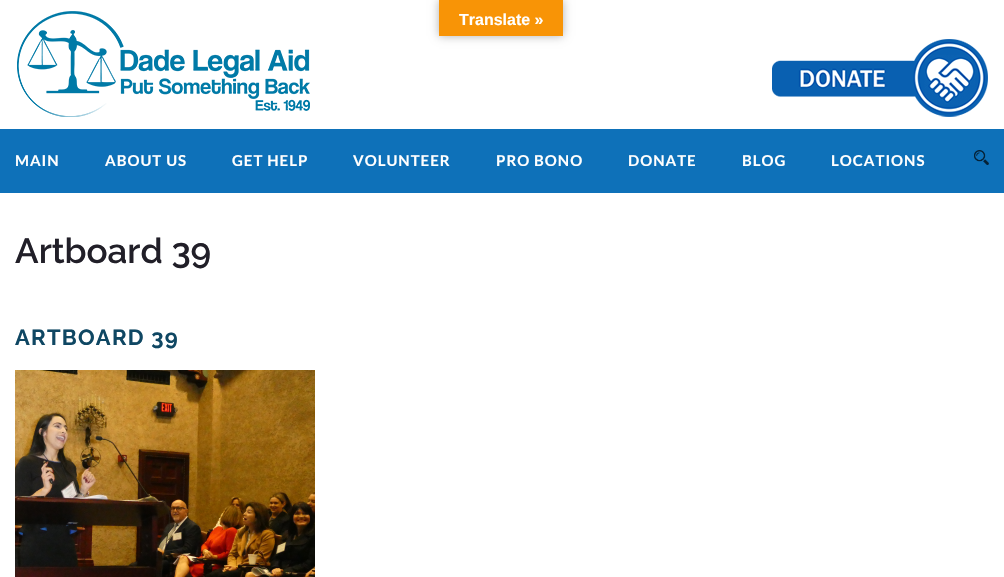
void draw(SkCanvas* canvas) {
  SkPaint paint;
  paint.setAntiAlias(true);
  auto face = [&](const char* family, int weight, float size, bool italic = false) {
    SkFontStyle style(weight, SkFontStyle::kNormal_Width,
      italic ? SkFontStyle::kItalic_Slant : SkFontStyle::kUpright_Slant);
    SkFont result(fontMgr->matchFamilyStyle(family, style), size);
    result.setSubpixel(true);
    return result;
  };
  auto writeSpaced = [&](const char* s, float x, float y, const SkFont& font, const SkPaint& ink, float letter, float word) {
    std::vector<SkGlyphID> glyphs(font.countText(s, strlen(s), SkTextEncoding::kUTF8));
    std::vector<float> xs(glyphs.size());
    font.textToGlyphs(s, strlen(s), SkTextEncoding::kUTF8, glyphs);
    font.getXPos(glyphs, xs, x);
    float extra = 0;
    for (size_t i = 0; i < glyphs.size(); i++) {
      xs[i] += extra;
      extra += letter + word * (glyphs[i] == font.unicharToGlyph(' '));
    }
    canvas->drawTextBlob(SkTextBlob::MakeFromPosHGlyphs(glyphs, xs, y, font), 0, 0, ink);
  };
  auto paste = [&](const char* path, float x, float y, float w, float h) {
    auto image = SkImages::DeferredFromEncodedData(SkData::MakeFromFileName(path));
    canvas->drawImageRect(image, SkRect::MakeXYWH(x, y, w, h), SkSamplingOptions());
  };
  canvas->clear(0xffffffff);
  paint.setColor(0x4d000000);
  paint.setMaskFilter(SkMaskFilter::MakeBlur(kNormal_SkBlurStyle, 4.5f));
  canvas->drawRect(SkRect::MakeXYWH(439, 0, 124, 36), paint);
  paint.setMaskFilter(nullptr);
  paint.setColor(0xfff89406);
  canvas->drawRect(SkRect::MakeXYWH(439, 0, 124, 36), paint);
  paste("img/1.png", 17, 11, 293, 106);
  paste("img/2.png", 772, 39, 216, 78);
  paint.setColor(0xff0e71b9);
  canvas->drawRect(SkRect::MakeXYWH(0, 129, 1004, 64), paint);
  paste("img/3.png", 974, 150, 15, 15);
  paste("img/4.png", 15, 370, 300, 207);
  auto f0 = face("Liberation Sans", 700, 16);
  paint.setColor(0xffffffff);
  canvas->drawString("Translate »", 459, 25, f0, paint);
  auto f1 = face("Lato", 700, 15);
  {
    const struct { const char* s; float x, y; } items[] = {
      {"MAIN", 15, 166},
      {"ABOUT US", 105, 166},
      {"GET HELP", 232, 166},
      {"VOLUNTEER", 353, 166},
      {"PRO BONO", 496, 166},
      {"DONATE", 628, 166},
      {"BLOG", 742, 166},
      {"LOCATIONS", 831, 166},
    };
    for (auto [s, x, y] : items) {
      writeSpaced(s, x, y, f1, paint, 1, 0);
    }
  }
  auto f2 = face("Raleway", 600, 35);
  paint.setColor(0xff211f28);
  canvas->drawString("Artboard 39", 15, 263, f2, paint);
  auto f3 = face("Raleway", 700, 22);
  paint.setColor(0xff0f4763);
  writeSpaced("ARTBOARD 39", 15, 345, f3, paint, 1.25f, 0);
}
